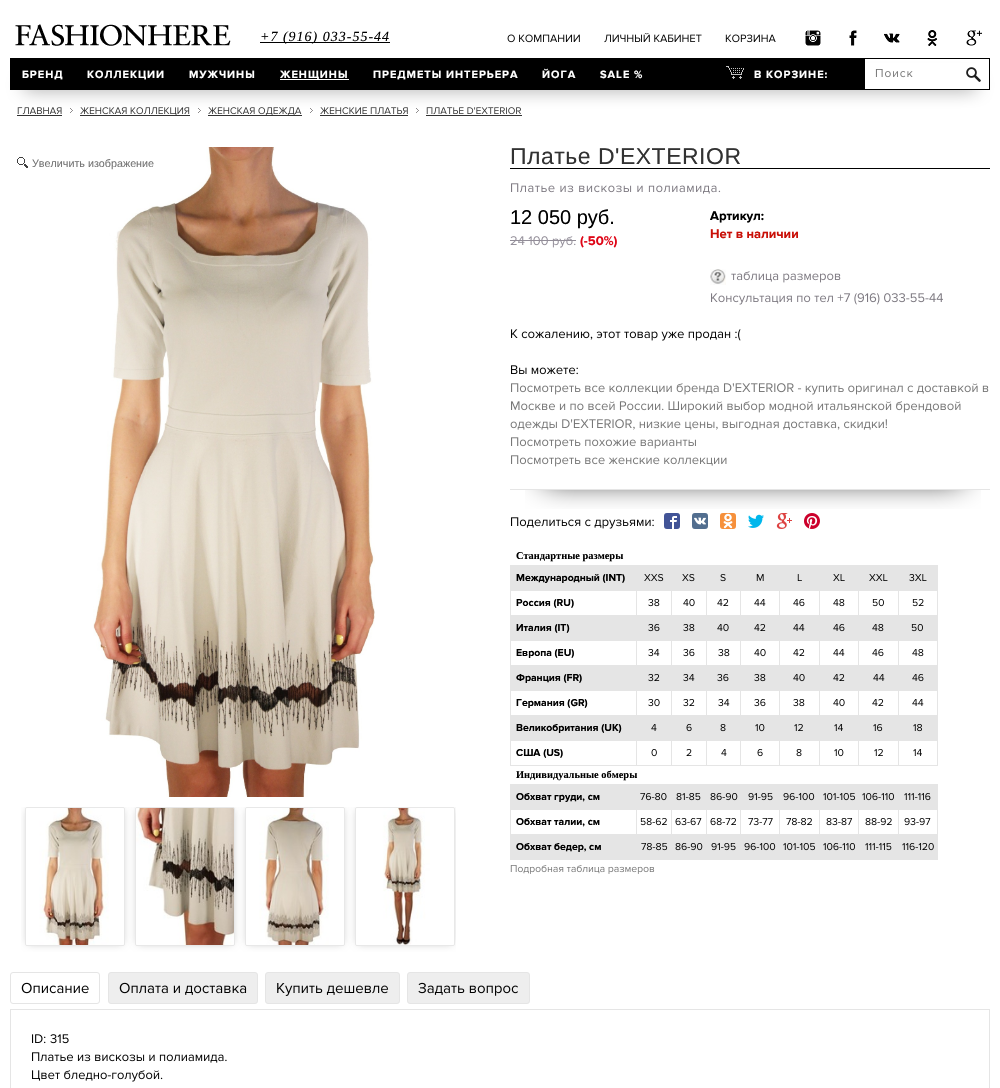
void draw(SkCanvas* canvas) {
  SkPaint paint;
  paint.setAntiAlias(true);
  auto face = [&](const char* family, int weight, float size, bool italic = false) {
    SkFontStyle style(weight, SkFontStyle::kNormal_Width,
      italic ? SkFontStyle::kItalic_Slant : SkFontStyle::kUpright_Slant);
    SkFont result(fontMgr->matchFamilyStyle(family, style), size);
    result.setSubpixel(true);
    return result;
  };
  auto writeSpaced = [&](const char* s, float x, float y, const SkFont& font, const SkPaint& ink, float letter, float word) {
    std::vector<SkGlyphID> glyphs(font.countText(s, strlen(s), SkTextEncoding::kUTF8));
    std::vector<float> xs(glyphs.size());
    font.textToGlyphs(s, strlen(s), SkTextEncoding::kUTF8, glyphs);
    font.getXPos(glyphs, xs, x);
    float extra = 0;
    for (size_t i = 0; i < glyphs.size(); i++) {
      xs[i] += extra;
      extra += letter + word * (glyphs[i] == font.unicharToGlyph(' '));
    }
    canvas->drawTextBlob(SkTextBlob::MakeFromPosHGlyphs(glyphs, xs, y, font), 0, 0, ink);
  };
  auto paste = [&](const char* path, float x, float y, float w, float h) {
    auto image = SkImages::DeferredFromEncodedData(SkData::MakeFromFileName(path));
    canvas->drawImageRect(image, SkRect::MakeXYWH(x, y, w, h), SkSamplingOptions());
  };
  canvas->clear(0xffffffff);
  paste("img/1.png", 15, 24, 216, 22);
  paint.setColor(0xff000000);
  canvas->drawRect(SkRect::MakeXYWH(260, 42, 130, 1), paint);
  paste("img/2.png", 507, 34, 73, 9);
  paste("img/3.png", 604, 33, 98, 10);
  paste("img/4.png", 725, 34, 51, 9);
  paste("img/5.png", 805, 30, 16, 16);
  paste("img/6.png", 849, 30, 8, 16);
  paste("img/7.png", 884, 33, 16, 10);
  paste("img/8.png", 927, 30, 10, 16);
  paste("img/9.png", 966, 30, 16, 16);
  paste("img/13.png", 70, 108, 3, 5);
  paste("img/14.png", 17, 107, 45, 8);
  paste("img/13.png", 198, 108, 3, 5);
  paste("img/15.png", 80, 107, 110, 8);
  paste("img/13.png", 310, 108, 3, 5);
  paste("img/16.png", 208, 107, 94, 8);
  paste("img/13.png", 416, 108, 3, 5);
  paste("img/17.png", 320, 107, 88, 8);
  paste("img/18.png", 426, 107, 95, 8);
  paint.setMaskFilter(SkMaskFilter::MakeBlur(kNormal_SkBlurStyle, 9));
  canvas->drawRect(SkRect::MakeXYWH(24, 83, 952, 4), paint);
  paint.setMaskFilter(nullptr);
  canvas->drawRect(SkRect::MakeXYWH(10, 58, 854, 32), paint);
  paint.setColor(0xffffffff);
  canvas->drawRect(SkRect::MakeXYWH(280, 79, 69, 1), paint);
  paste("img/10.png", 726, 66, 18, 13);
  canvas->drawRect(SkRect::MakeXYWH(865, 63, 124, 26), paint);
  paint.setStroke(true);
  paint.setStrokeWidth(1);
  paint.setColor(0xff000000);
  canvas->drawRect(SkRect::MakeXYWH(864.5f, 58.5f, 125, 31), paint);
  paste("img/11.png", 875, 69, 38, 9);
  paste("img/12.png", 966, 67, 15, 15);
  paint.setStroke(false);
  {
    const struct { float x, y, w, h; SkColor color; } items[] = {
      {17, 115, 45, 1, 0xff323232},
      {80, 115, 110, 1, 0xff323232},
      {208, 115, 94, 1, 0xff323232},
      {320, 115, 88, 1, 0xff323232},
      {426, 115, 96, 1, 0xff323232},
    };
    for (auto [x, y, w, h, color] : items) {
      paint.setColor(color);
      canvas->drawRect(SkRect::MakeXYWH(x, y, w, h), paint);
    }
  }
  paste("img/19.png", 17, 157, 11, 11);
  paste("img/20.png", 93, 147, 282, 650);
  canvas->save();
  canvas->clipRect(SkRect::MakeXYWH(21, 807, 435, 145));
  paint.setColor(0xffb3b3b3);
  paint.setMaskFilter(SkMaskFilter::MakeBlur(kNormal_SkBlurStyle, 4));
  canvas->drawRect(SkRect::MakeXYWH(28, 810, 94, 133), paint);
  paint.setMaskFilter(nullptr);
  canvas->restore();
  paint.setStroke(true);
  paint.setColor(0xffe8e8e8);
  canvas->drawRoundRect(SkRect::MakeXYWH(25.5f, 807.5f, 99, 138), 1.5f, 1.5f, paint);
  paste("img/21.png", 26, 808, 98, 137);
  canvas->save();
  canvas->clipRect(SkRect::MakeXYWH(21, 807, 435, 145));
  paint.setStroke(false);
  paint.setColor(0xffb3b3b3);
  paint.setMaskFilter(SkMaskFilter::MakeBlur(kNormal_SkBlurStyle, 4));
  canvas->drawRect(SkRect::MakeXYWH(138, 810, 94, 133), paint);
  paint.setMaskFilter(nullptr);
  canvas->restore();
  paint.setStroke(true);
  paint.setColor(0xffe8e8e8);
  canvas->drawRoundRect(SkRect::MakeXYWH(135.5f, 807.5f, 99, 138), 1.5f, 1.5f, paint);
  paste("img/22.png", 136, 808, 98, 137);
  canvas->save();
  canvas->clipRect(SkRect::MakeXYWH(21, 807, 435, 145));
  paint.setStroke(false);
  paint.setColor(0xffb3b3b3);
  paint.setMaskFilter(SkMaskFilter::MakeBlur(kNormal_SkBlurStyle, 4));
  canvas->drawRect(SkRect::MakeXYWH(248, 810, 94, 133), paint);
  paint.setMaskFilter(nullptr);
  canvas->restore();
  paint.setStroke(true);
  paint.setColor(0xffe8e8e8);
  canvas->drawRoundRect(SkRect::MakeXYWH(245.5f, 807.5f, 99, 138), 1.5f, 1.5f, paint);
  paste("img/23.png", 246, 808, 98, 137);
  canvas->save();
  canvas->clipRect(SkRect::MakeXYWH(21, 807, 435, 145));
  paint.setStroke(false);
  paint.setColor(0xffb3b3b3);
  paint.setMaskFilter(SkMaskFilter::MakeBlur(kNormal_SkBlurStyle, 4));
  canvas->drawRect(SkRect::MakeXYWH(358, 810, 94, 133), paint);
  paint.setMaskFilter(nullptr);
  canvas->restore();
  paint.setStroke(true);
  paint.setColor(0xffe8e8e8);
  canvas->drawRoundRect(SkRect::MakeXYWH(355.5f, 807.5f, 99, 138), 1.5f, 1.5f, paint);
  paste("img/24.png", 356, 808, 98, 137);
  canvas->save();
  canvas->clipRect(SkRect::MakeXYWH(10, 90, 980, 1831));
  canvas->clipRect(SkRect::MakeXYWH(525, 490, 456, 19));
  paint.setStroke(false);
  paint.setColor(0xff000000);
  paint.setMaskFilter(SkMaskFilter::MakeBlur(kNormal_SkBlurStyle, 14));
  canvas->drawRect(SkRect::MakeXYWH(544, 199, 418, 281), paint);
  paint.setMaskFilter(nullptr);
  canvas->restore();
  paint.setColor(0xffe5e5e5);
  canvas->drawRect(SkRect::MakeXYWH(510, 489, 480, 1), paint);
  paint.setColor(0xff000000);
  canvas->drawRect(SkRect::MakeXYWH(510, 168, 480, 1), paint);
  paste("img/25.png", 511, 183, 210, 11);
  paste("img/26.png", 510, 236, 66, 12);
  paint.setColor(0xff928d98);
  canvas->drawRect(SkRect::MakeXYWH(510, 240, 66, 1), paint);
  paste("img/27.png", 710, 269, 16, 16);
  paste("img/28.png", 731, 271, 110, 12);
  paste("img/29.png", 711, 293, 232, 12);
  paste("img/30.png", 511, 329, 230, 12);
  paste("img/31.png", 511, 365, 67, 10);
  paste("img/32.png", 511, 383, 478, 12);
  paste("img/33.png", 511, 401, 450, 12);
  paste("img/34.png", 510, 419, 377, 11);
  paste("img/35.png", 511, 437, 185, 12);
  paste("img/36.png", 511, 455, 216, 12);
  paste("img/37.png", 511, 517, 143, 12);
  paste("img/38.png", 664, 513, 16, 16);
  paste("img/39.png", 692, 513, 16, 16);
  paste("img/40.png", 720, 513, 16, 16);
  paste("img/41.png", 748, 514, 16, 14);
  paste("img/42.png", 776, 513, 16, 16);
  paste("img/43.png", 804, 513, 16, 16);
  {
    const struct { float x, y, w, h; SkColor color; } items[] = {
      {511, 566, 426, 25, 0xffe5e5e5},
      {510, 565, 428, 1, 0xffe5e5e5},
      {510, 615, 428, 1, 0xffe5e5e5},
      {510, 665, 428, 1, 0xffe5e5e5},
      {510, 715, 428, 1, 0xffe5e5e5},
      {937, 740, 1, 26, 0xffe5e5e5},
      {937, 715, 1, 26, 0xffe5e5e5},
      {937, 690, 1, 26, 0xffe5e5e5},
      {937, 665, 1, 26, 0xffe5e5e5},
      {937, 640, 1, 26, 0xffe5e5e5},
      {937, 615, 1, 26, 0xffe5e5e5},
      {937, 590, 1, 26, 0xffe5e5e5},
      {937, 565, 1, 26, 0xffe5e5e5},
    };
    for (auto [x, y, w, h, color] : items) {
      paint.setColor(color);
      canvas->drawRect(SkRect::MakeXYWH(x, y, w, h), paint);
    }
  }
  paste("img/44.png", 909, 574, 18, 8);
  {
    const struct { float x, y, w, h; SkColor color; } items[] = {
      {510, 740, 1, 1, 0xffe5e5e5},
      {898, 765, 40, 1, 0xffe5e5e5},
      {511, 716, 426, 25, 0xffe5e5e5},
      {898, 740, 1, 26, 0xffe5e5e5},
      {858, 765, 41, 1, 0xffe5e5e5},
      {858, 740, 1, 26, 0xffe5e5e5},
      {819, 765, 40, 1, 0xffe5e5e5},
      {819, 740, 1, 26, 0xffe5e5e5},
      {779, 765, 41, 1, 0xffe5e5e5},
      {779, 740, 1, 26, 0xffe5e5e5},
      {740, 765, 40, 1, 0xffe5e5e5},
      {740, 740, 1, 26, 0xffe5e5e5},
      {706, 765, 35, 1, 0xffe5e5e5},
      {706, 740, 1, 26, 0xffe5e5e5},
      {671, 765, 36, 1, 0xffe5e5e5},
      {671, 740, 1, 26, 0xffe5e5e5},
      {636, 765, 36, 1, 0xffe5e5e5},
      {636, 740, 1, 26, 0xffe5e5e5},
      {510, 765, 127, 1, 0xffe5e5e5},
      {510, 740, 1, 26, 0xffe5e5e5},
      {510, 715, 1, 26, 0xffe5e5e5},
      {510, 690, 1, 26, 0xffe5e5e5},
      {510, 665, 1, 26, 0xffe5e5e5},
      {510, 640, 1, 26, 0xffe5e5e5},
      {510, 615, 1, 26, 0xffe5e5e5},
      {510, 590, 1, 26, 0xffe5e5e5},
      {510, 565, 1, 26, 0xffe5e5e5},
    };
    for (auto [x, y, w, h, color] : items) {
      paint.setColor(color);
      canvas->drawRect(SkRect::MakeXYWH(x, y, w, h), paint);
    }
  }
  paste("img/45.png", 644, 574, 20, 8);
  paste("img/46.png", 682, 574, 13, 8);
  paste("img/47.png", 720, 574, 6, 8);
  paste("img/48.png", 756, 574, 8, 7);
  paste("img/49.png", 797, 574, 5, 7);
  paste("img/50.png", 833, 574, 12, 7);
  paste("img/51.png", 869, 574, 19, 7);
  canvas->drawRect(SkRect::MakeXYWH(636, 590, 1, 26), paint);
  paste("img/52.png", 648, 599, 12, 8);
  canvas->drawRect(SkRect::MakeXYWH(671, 590, 1, 26), paint);
  paste("img/53.png", 683, 599, 12, 8);
  canvas->drawRect(SkRect::MakeXYWH(706, 590, 1, 26), paint);
  paste("img/54.png", 717, 599, 12, 7);
  canvas->drawRect(SkRect::MakeXYWH(740, 590, 1, 26), paint);
  paste("img/55.png", 754, 599, 12, 7);
  canvas->drawRect(SkRect::MakeXYWH(779, 590, 1, 26), paint);
  paste("img/56.png", 793, 599, 12, 8);
  canvas->drawRect(SkRect::MakeXYWH(819, 590, 1, 26), paint);
  paste("img/57.png", 833, 599, 12, 8);
  canvas->drawRect(SkRect::MakeXYWH(858, 590, 1, 26), paint);
  paste("img/58.png", 872, 599, 12, 8);
  canvas->drawRect(SkRect::MakeXYWH(898, 590, 1, 26), paint);
  paste("img/59.png", 912, 599, 12, 8);
  canvas->drawRect(SkRect::MakeXYWH(511, 616, 426, 25), paint);
  paste("img/60.png", 911, 624, 12, 8);
  paste("img/61.png", 648, 624, 12, 8);
  paste("img/62.png", 683, 624, 12, 8);
  paste("img/63.png", 717, 624, 12, 8);
  paste("img/64.png", 754, 624, 12, 7);
  paste("img/65.png", 793, 624, 12, 7);
  paste("img/66.png", 833, 624, 12, 8);
  paste("img/67.png", 872, 624, 12, 8);
  canvas->drawRect(SkRect::MakeXYWH(636, 640, 1, 26), paint);
  paste("img/68.png", 648, 649, 12, 8);
  canvas->drawRect(SkRect::MakeXYWH(671, 640, 1, 26), paint);
  paste("img/69.png", 683, 649, 12, 8);
  canvas->drawRect(SkRect::MakeXYWH(706, 640, 1, 26), paint);
  paste("img/52.png", 718, 649, 12, 8);
  canvas->drawRect(SkRect::MakeXYWH(740, 640, 1, 26), paint);
  paste("img/53.png", 754, 649, 12, 8);
  canvas->drawRect(SkRect::MakeXYWH(779, 640, 1, 26), paint);
  paste("img/54.png", 793, 649, 12, 7);
  canvas->drawRect(SkRect::MakeXYWH(819, 640, 1, 26), paint);
  paste("img/55.png", 833, 649, 12, 7);
  canvas->drawRect(SkRect::MakeXYWH(858, 640, 1, 26), paint);
  paste("img/56.png", 872, 649, 12, 8);
  canvas->drawRect(SkRect::MakeXYWH(898, 640, 1, 26), paint);
  paste("img/57.png", 912, 649, 12, 8);
  canvas->drawRect(SkRect::MakeXYWH(511, 666, 426, 25), paint);
  paste("img/66.png", 912, 674, 12, 8);
  paste("img/70.png", 648, 674, 12, 8);
  paste("img/71.png", 683, 674, 12, 8);
  paste("img/61.png", 717, 674, 12, 8);
  paste("img/62.png", 754, 674, 12, 8);
  paste("img/63.png", 793, 674, 12, 8);
  paste("img/64.png", 833, 674, 12, 7);
  paste("img/65.png", 873, 674, 12, 7);
  canvas->drawRect(SkRect::MakeXYWH(636, 690, 1, 26), paint);
  paste("img/72.png", 648, 699, 12, 8);
  canvas->drawRect(SkRect::MakeXYWH(671, 690, 1, 26), paint);
  paste("img/73.png", 683, 699, 12, 8);
  canvas->drawRect(SkRect::MakeXYWH(706, 690, 1, 26), paint);
  paste("img/68.png", 718, 699, 12, 8);
  canvas->drawRect(SkRect::MakeXYWH(740, 690, 1, 26), paint);
  paste("img/69.png", 754, 699, 12, 8);
  canvas->drawRect(SkRect::MakeXYWH(779, 690, 1, 26), paint);
  paste("img/52.png", 793, 699, 12, 8);
  canvas->drawRect(SkRect::MakeXYWH(819, 690, 1, 26), paint);
  paste("img/53.png", 833, 699, 12, 8);
  canvas->drawRect(SkRect::MakeXYWH(858, 690, 1, 26), paint);
  paste("img/54.png", 872, 699, 12, 7);
  canvas->drawRect(SkRect::MakeXYWH(898, 690, 1, 26), paint);
  paste("img/55.png", 912, 699, 12, 7);
  paste("img/74.png", 913, 724, 9, 8);
  paste("img/75.png", 651, 724, 6, 7);
  paste("img/76.png", 686, 724, 6, 8);
  paste("img/77.png", 720, 724, 6, 8);
  paste("img/78.png", 755, 724, 10, 8);
  paste("img/79.png", 794, 724, 9, 7);
  paste("img/80.png", 834, 724, 9, 7);
  paste("img/81.png", 873, 724, 10, 8);
  paste("img/82.png", 651, 749, 6, 8);
  paste("img/83.png", 686, 749, 6, 7);
  paste("img/84.png", 721, 749, 6, 7);
  paste("img/85.png", 757, 749, 6, 8);
  paste("img/86.png", 796, 749, 6, 8);
  paste("img/87.png", 834, 749, 10, 8);
  paste("img/88.png", 874, 749, 9, 7);
  paste("img/89.png", 913, 749, 9, 7);
  {
    const struct { float x, y, w, h; SkColor color; } items[] = {
      {511, 785, 426, 25, 0xffe5e5e5},
      {510, 784, 428, 1, 0xffe5e5e5},
      {510, 834, 428, 1, 0xffe5e5e5},
      {937, 834, 1, 26, 0xffe5e5e5},
      {937, 809, 1, 26, 0xffe5e5e5},
      {937, 784, 1, 26, 0xffe5e5e5},
    };
    for (auto [x, y, w, h, color] : items) {
      paint.setColor(color);
      canvas->drawRect(SkRect::MakeXYWH(x, y, w, h), paint);
    }
  }
  paste("img/90.png", 904, 793, 27, 8);
  {
    const struct { float x, y, w, h; SkColor color; } items[] = {
      {510, 834, 1, 26, 0xffe5e5e5},
      {510, 809, 1, 26, 0xffe5e5e5},
      {510, 784, 1, 26, 0xffe5e5e5},
    };
    for (auto [x, y, w, h, color] : items) {
      paint.setColor(color);
      canvas->drawRect(SkRect::MakeXYWH(x, y, w, h), paint);
    }
  }
  paste("img/91.png", 640, 793, 27, 8);
  paste("img/92.png", 676, 793, 25, 8);
  paste("img/93.png", 710, 793, 28, 8);
  paste("img/94.png", 748, 793, 25, 8);
  paste("img/95.png", 783, 793, 32, 8);
  paste("img/96.png", 823, 793, 32, 8);
  paste("img/97.png", 862, 793, 32, 8);
  canvas->drawRect(SkRect::MakeXYWH(636, 809, 1, 26), paint);
  paste("img/98.png", 640, 818, 27, 8);
  canvas->drawRect(SkRect::MakeXYWH(671, 809, 1, 26), paint);
  paste("img/99.png", 675, 818, 27, 8);
  canvas->drawRect(SkRect::MakeXYWH(706, 809, 1, 26), paint);
  paste("img/100.png", 710, 818, 26, 8);
  canvas->drawRect(SkRect::MakeXYWH(740, 809, 1, 26), paint);
  paste("img/101.png", 748, 818, 25, 8);
  canvas->drawRect(SkRect::MakeXYWH(779, 809, 1, 26), paint);
  paste("img/102.png", 786, 818, 26, 8);
  canvas->drawRect(SkRect::MakeXYWH(819, 809, 1, 26), paint);
  paste("img/103.png", 826, 818, 27, 8);
  canvas->drawRect(SkRect::MakeXYWH(858, 809, 1, 26), paint);
  paste("img/104.png", 865, 818, 27, 8);
  canvas->drawRect(SkRect::MakeXYWH(898, 809, 1, 26), paint);
  paste("img/105.png", 904, 818, 27, 8);
  canvas->drawRect(SkRect::MakeXYWH(511, 835, 426, 25), paint);
  paste("img/106.png", 902, 843, 32, 8);
  paste("img/107.png", 641, 843, 27, 8);
  paste("img/93.png", 675, 843, 28, 8);
  paste("img/94.png", 711, 843, 25, 8);
  paste("img/95.png", 744, 843, 32, 8);
  paste("img/96.png", 783, 843, 32, 8);
  paste("img/97.png", 823, 843, 32, 8);
  paste("img/108.png", 865, 843, 27, 8);
  paste("img/109.png", 510, 865, 145, 9);
  paint.setStroke(true);
  canvas->drawRoundRect(SkRect::MakeXYWH(10.5f, 972.5f, 89, 31), 2.5f, 2.5f, paint);
  paste("img/110.png", 21, 982, 68, 12);
  paint.setStroke(false);
  paint.setColor(0xffeeeeee);
  canvas->drawRoundRect(SkRect::MakeXYWH(108.5f, 972.5f, 149, 31), 2.5f, 2.5f, paint);
  paint.setStroke(true);
  paint.setColor(0xffe5e5e5);
  canvas->drawRoundRect(SkRect::MakeXYWH(108.5f, 972.5f, 149, 31), 2.5f, 2.5f, paint);
  paste("img/111.png", 119, 982, 128, 13);
  paint.setStroke(false);
  paint.setColor(0xffeeeeee);
  canvas->drawRoundRect(SkRect::MakeXYWH(265.5f, 972.5f, 134, 31), 2.5f, 2.5f, paint);
  paint.setStroke(true);
  paint.setColor(0xffe5e5e5);
  canvas->drawRoundRect(SkRect::MakeXYWH(265.5f, 972.5f, 134, 31), 2.5f, 2.5f, paint);
  paste("img/112.png", 277, 983, 112, 13);
  paint.setStroke(false);
  paint.setColor(0xffeeeeee);
  canvas->drawRoundRect(SkRect::MakeXYWH(407.5f, 972.5f, 122, 31), 2.5f, 2.5f, paint);
  paint.setStroke(true);
  paint.setColor(0xffe5e5e5);
  canvas->drawRoundRect(SkRect::MakeXYWH(407.5f, 972.5f, 122, 31), 2.5f, 2.5f, paint);
  paste("img/113.png", 418, 982, 100, 14);
  canvas->drawRect(SkRect::MakeXYWH(10.5f, 1009.5f, 979, 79), paint);
  paste("img/114.png", 32, 1034, 14, 10);
  paste("img/115.png", 50, 1034, 19, 10);
  paste("img/116.png", 32, 1052, 195, 11);
  paste("img/117.png", 32, 1070, 131, 12);
  auto f0 = face("Liberation Serif", 400, 14, true);
  paint.setStroke(false);
  paint.setColor(0xff000000);
  writeSpaced("+7 (916) 033-55-44", 260, 41, f0, paint, 1, 0);
  auto f1 = face("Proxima", 700, 11);
  paint.setColor(0xffffffff);
  {
    const struct { const char* s; float x, y; } items[] = {
      {"БРЕНД", 22, 78},
      {"КОЛЛЕКЦИИ", 87, 78},
      {"МУЖЧИНЫ", 189, 78},
      {"ЖЕНЩИНЫ", 280, 78},
      {"ПРЕДМЕТЫ ИНТЕРЬЕРА", 373, 78},
      {"ЙОГА", 542, 78},
      {"SALE %", 600, 78},
      {"В КОРЗИНЕ:", 754, 78},
    };
    for (auto [s, x, y] : items) {
      writeSpaced(s, x, y, f1, paint, 1, 0);
    }
  }
  auto f2 = face("Liberation Sans", 400, 10.75f);
  paint.setColor(0xff737373);
  canvas->drawString("Увеличить изображение", 32, 167, f2, paint);
  auto f3 = face("Liberation Sans", 400, 23);
  paint.setColor(0xff323232);
  writeSpaced("Платье D'EXTERIOR", 510, 164, f3, paint, 0.5f, 0);
  auto f4 = face("Liberation Sans", 400, 20);
  paint.setColor(0xff000000);
  canvas->drawString("12 050 руб.", 510, 224, f4, paint);
  auto f5 = face("Proxima", 700, 13);
  paint.setColor(0xffdf0617);
  canvas->drawString("(-50%)", 580, 245, f5, paint);
  paint.setColor(0xff000000);
  canvas->drawString("Артикул:", 710, 220, f5, paint);
  paint.setColor(0xffc90f07);
  canvas->drawString("Нет в наличии", 710, 238, f5, paint);
  auto f6 = face("Liberation Serif", 700, 10.4f);
  paint.setColor(0xff000000);
  canvas->drawString("Стандартные размеры", 516, 559, f6, paint);
  auto f7 = face("Proxima", 700, 10.4f);
  {
    const struct { const char* s; float x, y; } items[] = {
      {"Международный (INT)", 516, 581},
      {"Россия (RU)", 516, 606},
      {"Италия (IT)", 516, 631},
      {"Европа (EU)", 516, 656},
      {"Франция (FR)", 516, 681},
      {"Германия (GR)", 516, 706},
      {"Великобритания (UK)", 516, 731},
      {"США (US)", 516, 756},
    };
    for (auto [s, x, y] : items) {
      canvas->drawString(s, x, y, f7, paint);
    }
  }
  canvas->drawString("Индивидуальные обмеры", 516, 778, f6, paint);
  {
    const struct { const char* s; float x, y; } items[] = {
      {"Обхват груди, см", 516, 800},
      {"Обхват талии, см", 516, 825},
      {"Обхват бедер, см", 516, 850},
    };
    for (auto [s, x, y] : items) {
      canvas->drawString(s, x, y, f7, paint);
    }
  }
}
